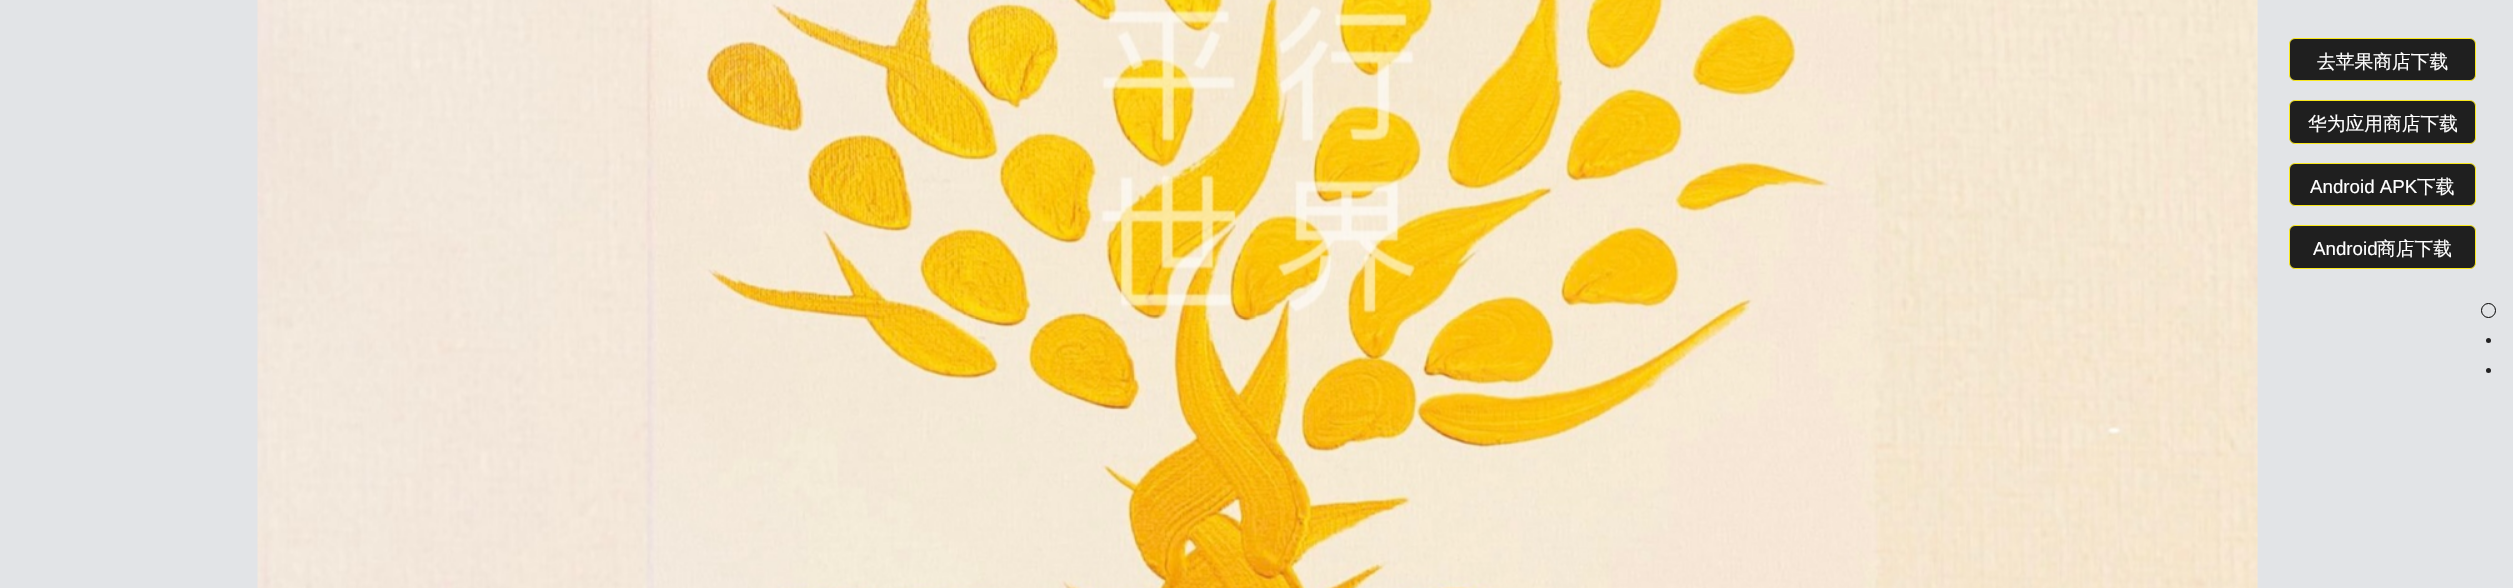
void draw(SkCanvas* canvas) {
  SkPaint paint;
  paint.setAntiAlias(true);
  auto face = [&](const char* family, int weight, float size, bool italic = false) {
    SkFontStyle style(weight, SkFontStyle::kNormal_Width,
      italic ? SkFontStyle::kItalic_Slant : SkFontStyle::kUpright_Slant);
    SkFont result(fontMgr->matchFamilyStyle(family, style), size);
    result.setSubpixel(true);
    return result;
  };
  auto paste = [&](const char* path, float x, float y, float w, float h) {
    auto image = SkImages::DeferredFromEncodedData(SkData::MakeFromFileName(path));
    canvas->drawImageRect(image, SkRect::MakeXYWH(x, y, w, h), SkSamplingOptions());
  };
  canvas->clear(0xffe2e4e7);
  paste("img/1.png", 257, 0, 2001, 588);
  paint.setColor(0xff1f1f1f);
  canvas->drawRoundRect(SkRect::MakeXYWH(2289.5f, 38.5f, 186, 42), 5.5f, 5.5f, paint);
  paint.setStroke(true);
  paint.setStrokeWidth(1);
  paint.setColor(0xfff8e71c);
  canvas->drawRoundRect(SkRect::MakeXYWH(2289.5f, 38.5f, 186, 42), 5.5f, 5.5f, paint);
  paint.setStroke(false);
  paint.setColor(0xff1f1f1f);
  canvas->drawRoundRect(SkRect::MakeXYWH(2289.5f, 100.5f, 186, 43), 5.5f, 5.5f, paint);
  paint.setStroke(true);
  paint.setColor(0xfff8e71c);
  canvas->drawRoundRect(SkRect::MakeXYWH(2289.5f, 100.5f, 186, 43), 5.5f, 5.5f, paint);
  paint.setStroke(false);
  paint.setColor(0xff1f1f1f);
  canvas->drawRoundRect(SkRect::MakeXYWH(2289.5f, 163.5f, 186, 42), 5.5f, 5.5f, paint);
  paint.setStroke(true);
  paint.setColor(0xfff8e71c);
  canvas->drawRoundRect(SkRect::MakeXYWH(2289.5f, 163.5f, 186, 42), 5.5f, 5.5f, paint);
  paint.setStroke(false);
  paint.setColor(0xff1f1f1f);
  canvas->drawRoundRect(SkRect::MakeXYWH(2289.5f, 225.5f, 186, 43), 5.5f, 5.5f, paint);
  paint.setStroke(true);
  paint.setColor(0xfff8e71c);
  canvas->drawRoundRect(SkRect::MakeXYWH(2289.5f, 225.5f, 186, 43), 5.5f, 5.5f, paint);
  paint.setColor(0xff000000);
  canvas->drawCircle(2488.5f, 310.5f, 7, paint);
  paint.setStroke(false);
  paint.setColor(0xff222223);
  canvas->drawCircle(2488.5f, 340.5f, 2.5f, paint);
  canvas->drawCircle(2488.5f, 370.5f, 2.5f, paint);
  auto f0 = face("WenQuanYi Zen Hei", 500, 18.75f);
  paint.setColor(0xffffffff);
  canvas->drawString("去苹果商店下载", 2317, 68, f0, paint);
  canvas->drawString("华为应用商店下载", 2308, 130, f0, paint);
  auto f1 = face("Liberation Sans", 400, 18.75f);
  canvas->drawString("Android APK", 2310, 193, f1, paint);
  canvas->drawString("下载", 2417, 193, f0, paint);
  canvas->drawString("Android", 2313, 255, f1, paint);
  canvas->drawString("商店下载", 2377, 255, f0, paint);
}
